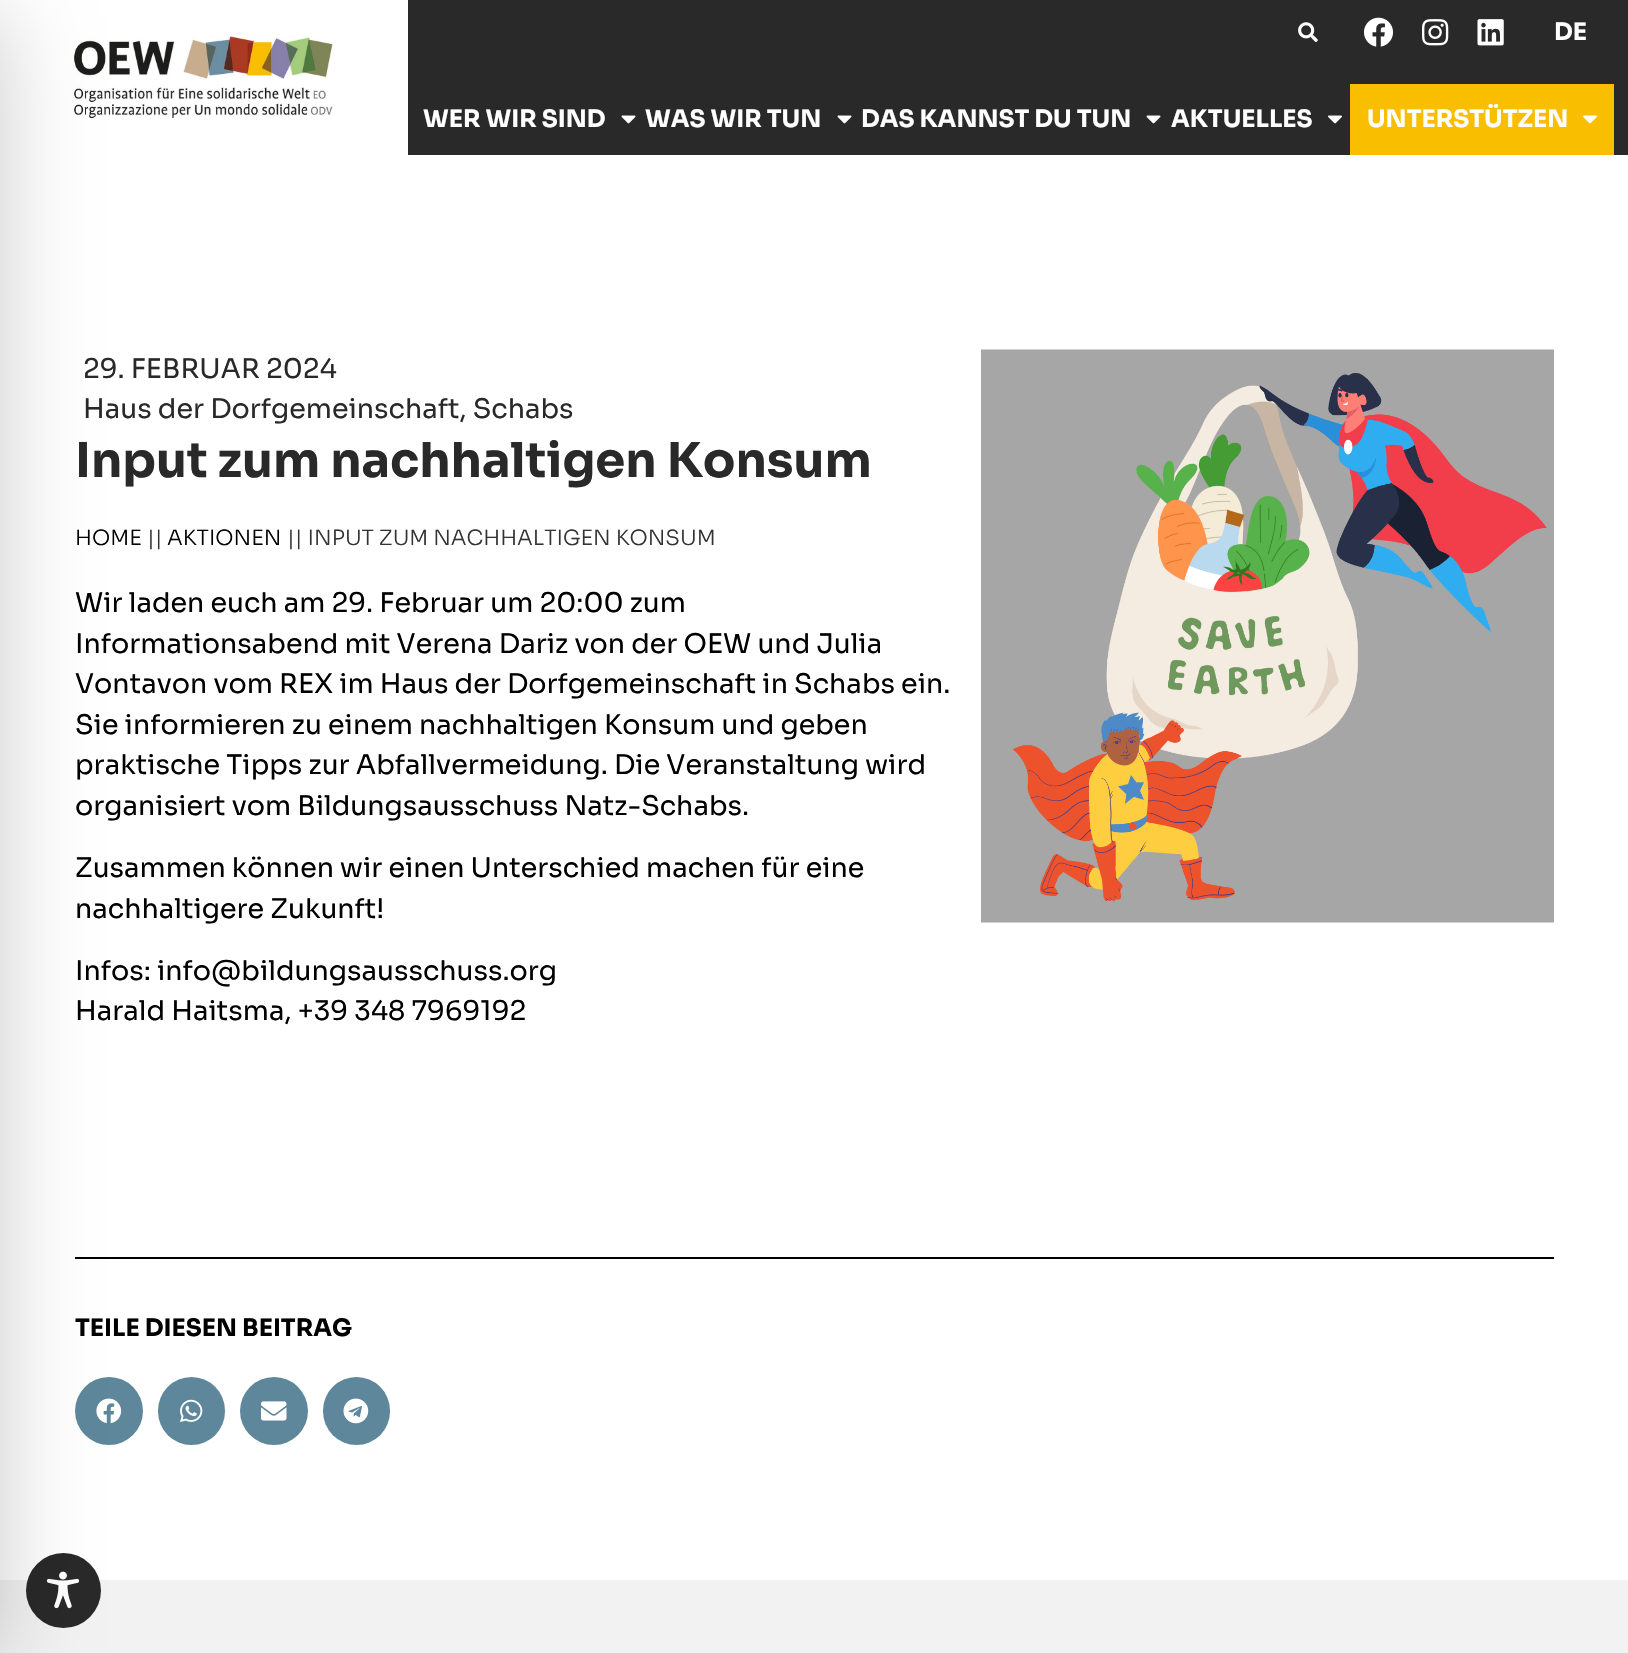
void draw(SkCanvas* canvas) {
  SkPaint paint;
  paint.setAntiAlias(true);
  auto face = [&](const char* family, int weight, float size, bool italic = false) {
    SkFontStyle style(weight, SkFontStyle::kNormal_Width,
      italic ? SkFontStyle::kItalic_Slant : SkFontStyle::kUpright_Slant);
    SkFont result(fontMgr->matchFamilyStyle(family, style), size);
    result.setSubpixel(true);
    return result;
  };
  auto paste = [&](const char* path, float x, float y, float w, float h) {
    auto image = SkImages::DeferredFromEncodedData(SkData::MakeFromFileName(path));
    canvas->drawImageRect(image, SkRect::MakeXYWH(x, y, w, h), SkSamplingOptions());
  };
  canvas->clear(0xffffffff);
  paste("img/1.png", 74, 36, 259, 83);
  paint.setColor(0xff000000);
  canvas->drawRect(SkRect::MakeXYWH(75, 1257, 1479, 2), paint);
  paint.setColor(0xff5e879b);
  canvas->drawCircle(109, 1411, 34, paint);
  paste("img/10.png", 96, 1398, 26, 26);
  paint.setColor(0xfff2f2f2);
  canvas->drawRect(SkRect::MakeXYWH(0, 1580, 1628, 73), paint);
  paint.setColor(0xff292929);
  canvas->drawCircle(63.5f, 1590.5f, 37.5f, paint);
  paste("img/14.png", 46, 1571, 34, 38);
  paint.setColor(0x33000000);
  paint.setMaskFilter(SkMaskFilter::MakeBlur(kNormal_SkBlurStyle, 45));
  canvas->drawRect(SkRect::MakeXYWH(-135, 15, 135, 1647), paint);
  paint.setMaskFilter(nullptr);
  paint.setColor(0xff292929);
  canvas->drawRect(SkRect::MakeXYWH(408, 0, 1220, 155), paint);
  paste("img/2.png", 1298, 22, 20, 20);
  paste("img/3.png", 1364, 17, 29, 30);
  paste("img/4.png", 1422, 19, 27, 27);
  paste("img/5.png", 1477, 19, 27, 27);
  paste("img/6.png", 621, 115, 15, 9);
  paste("img/6.png", 837, 115, 15, 9);
  paste("img/6.png", 1146, 115, 15, 9);
  paste("img/7.png", 1328, 115, 14, 9);
  paint.setColor(0xfff9be00);
  canvas->drawRect(SkRect::MakeXYWH(1350, 84, 264, 71), paint);
  paste("img/8.png", 1583, 115, 14, 9);
  paste("img/9.png", 981, 349, 573, 574);
  paint.setColor(0xff5e879b);
  canvas->drawRoundRect(SkRect::MakeXYWH(158, 1377, 67, 68), 33.5f, 33.5f, paint);
  paste("img/11.png", 180, 1399, 23, 23);
  canvas->drawCircle(274, 1411, 34, paint);
  paste("img/12.png", 261, 1401, 26, 20);
  canvas->drawRoundRect(SkRect::MakeXYWH(323, 1377, 67, 68), 33.5f, 33.5f, paint);
  paste("img/13.png", 343, 1398, 26, 26);
  auto f0 = face("Sora", 700, 24);
  paint.setColor(0xffffffff);
  {
    const struct { const char* s; float x, y; } items[] = {
      {"DE", 1554, 40},
      {"WER WIR SIND", 423, 127},
      {"WAS WIR TUN", 645, 127},
      {"DAS KANNST DU TUN", 861, 127},
      {"AKTUELLES", 1171, 127},
      {"UNTERSTÜTZEN", 1367, 127},
    };
    for (auto [s, x, y] : items) {
      canvas->drawString(s, x, y, f0, paint);
    }
  }
  auto f1 = face("Sora", 400, 27);
  paint.setColor(0xff292929);
  canvas->drawString("29. FEBRUAR 2024", 83, 378, f1, paint);
  canvas->drawString("Haus der Dorfgemeinschaft, Schabs", 83, 418, f1, paint);
  auto f2 = face("Sora", 700, 48);
  canvas->drawString("Input zum nachhaltigen Konsum", 75, 477, f2, paint);
  auto f3 = face("Sora", 300, 21);
  paint.setColor(0xff000000);
  canvas->drawString("HOME", 75, 545, f3, paint);
  paint.setColor(0xff333333);
  canvas->drawString("||", 147, 545, f3, paint);
  paint.setColor(0xff000000);
  canvas->drawString("AKTIONEN", 167, 545, f3, paint);
  paint.setColor(0xff333333);
  canvas->drawString("|| INPUT ZUM NACHHALTIGEN KONSUM", 287, 545, f3, paint);
  paint.setColor(0xff000000);
  {
    const struct { const char* s; float x, y; } items[] = {
      {"Wir laden euch am 29. Februar um 20:00 zum", 75, 612},
      {"Informationsabend mit Verena Dariz von der OEW und Julia", 75, 653},
      {"Vontavon vom REX im Haus der Dorfgemeinschaft in Schabs ein.", 75, 693},
      {"Sie informieren zu einem nachhaltigen Konsum und geben", 75, 734},
      {"praktische Tipps zur Abfallvermeidung. Die Veranstaltung wird", 75, 774},
      {"organisiert vom Bildungsausschuss Natz-Schabs.", 75, 815},
      {"Zusammen können wir einen Unterschied machen für eine", 75, 877},
      {"nachhaltigere Zukunft!", 75, 918},
      {"Infos: info@bildungsausschuss.org", 75, 980},
      {"Harald Haitsma, +39 348 7969192", 75, 1020},
    };
    for (auto [s, x, y] : items) {
      canvas->drawString(s, x, y, f1, paint);
    }
  }
  canvas->drawString("TEILE DIESEN BEITRAG", 75, 1336, f0, paint);
}
